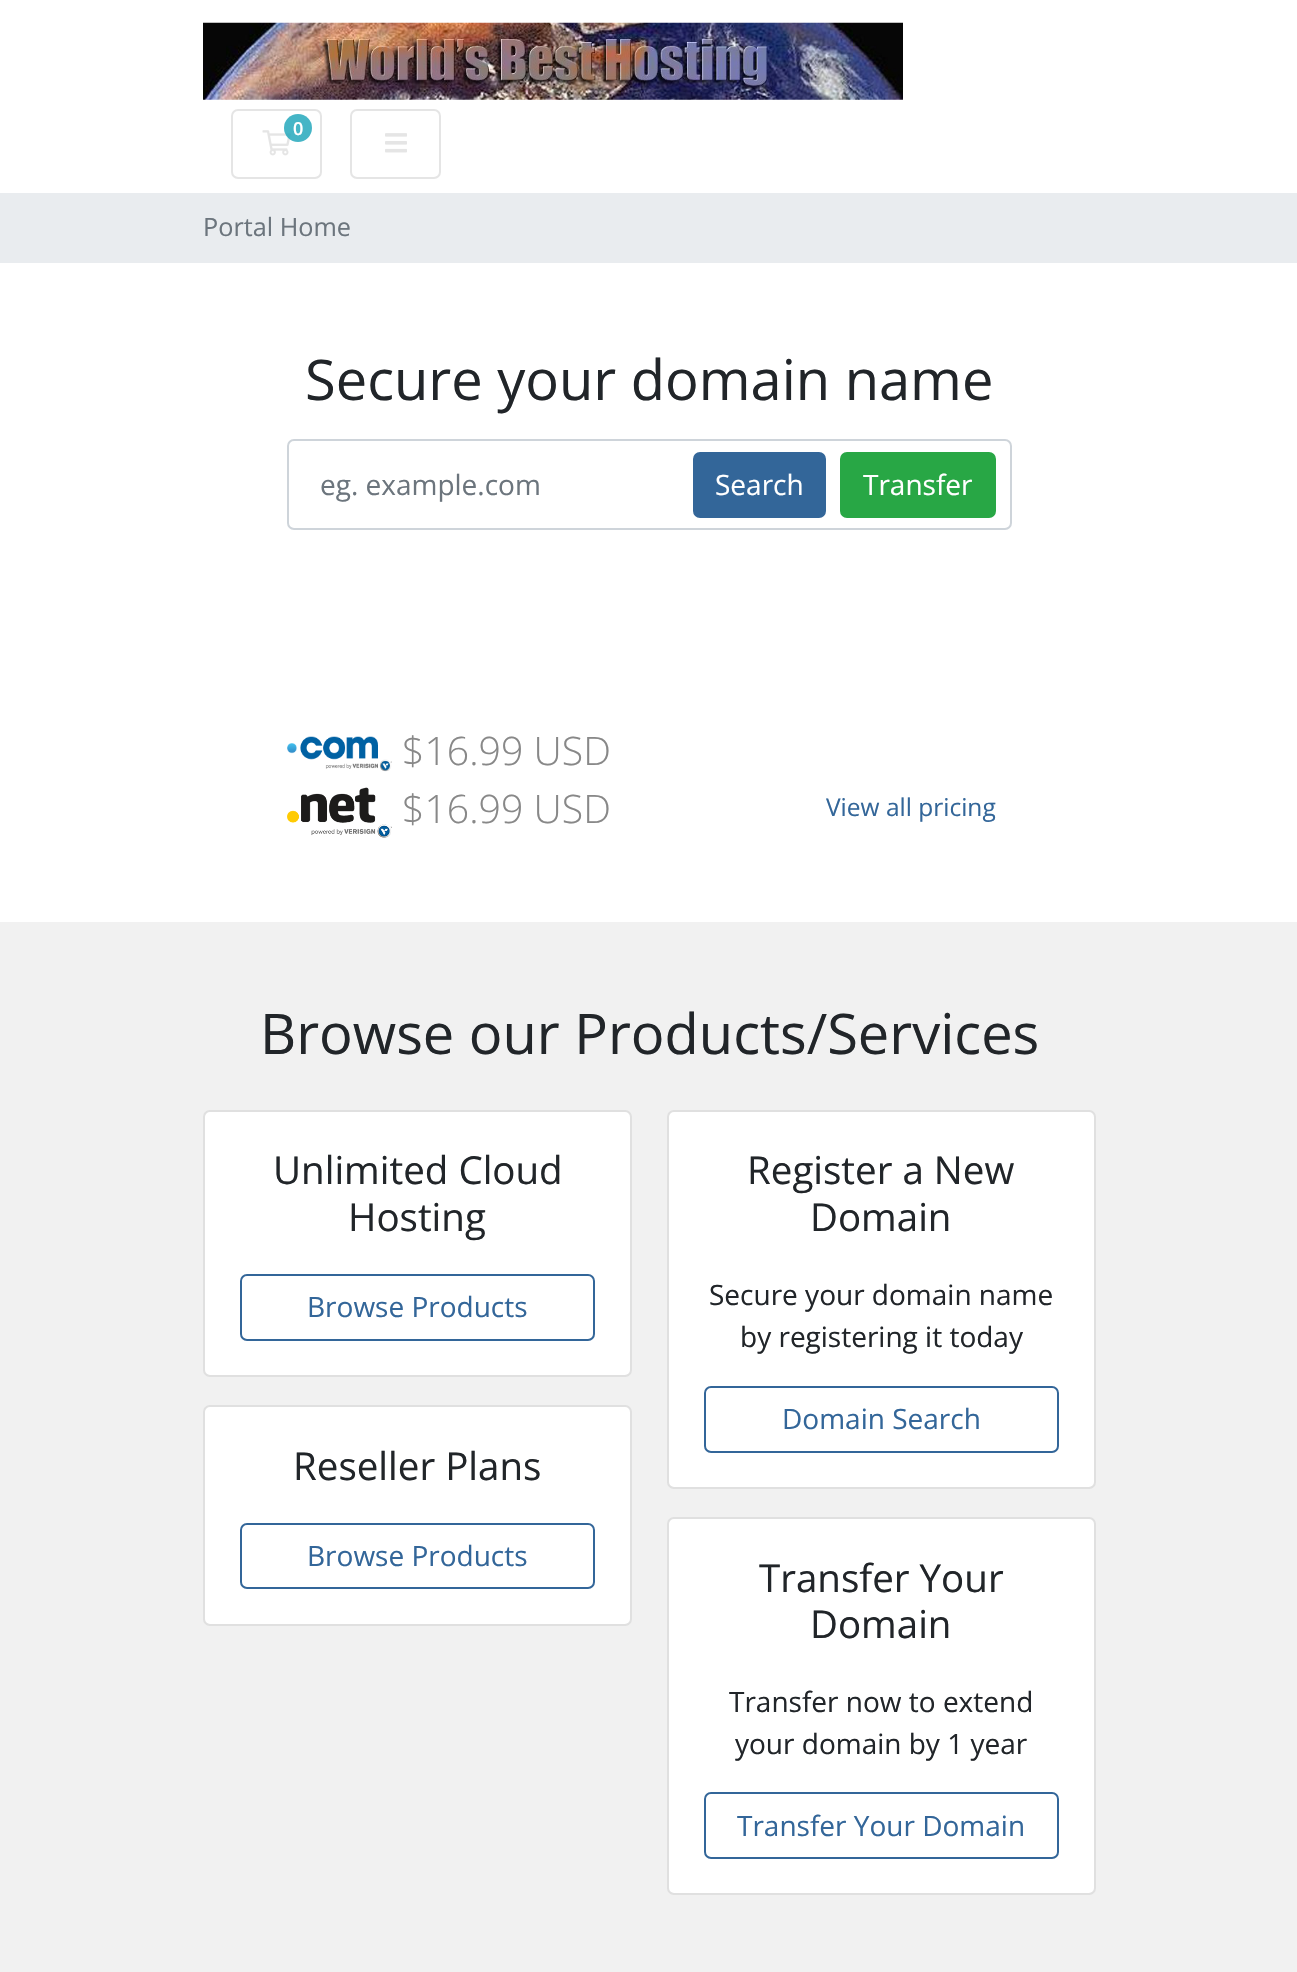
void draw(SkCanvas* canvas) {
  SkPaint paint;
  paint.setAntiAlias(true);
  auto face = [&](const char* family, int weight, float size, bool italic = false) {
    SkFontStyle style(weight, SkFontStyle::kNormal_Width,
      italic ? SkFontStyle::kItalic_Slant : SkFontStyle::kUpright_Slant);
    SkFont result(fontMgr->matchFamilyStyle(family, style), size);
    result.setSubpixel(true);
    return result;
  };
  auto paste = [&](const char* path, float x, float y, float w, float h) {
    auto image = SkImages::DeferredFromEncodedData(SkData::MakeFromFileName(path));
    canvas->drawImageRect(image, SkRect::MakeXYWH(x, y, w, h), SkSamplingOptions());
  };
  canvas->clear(0xfff1f1f1);
  paint.setColor(0xffffffff);
  canvas->drawRect(SkRect::MakeXYWH(0, 0, 1297, 193), paint);
  paste("img/1.png", 203, 22, 700, 78);
  paint.setStroke(true);
  paint.setStrokeWidth(2);
  paint.setColor(0xffe5e5e5);
  canvas->drawRoundRect(SkRect::MakeXYWH(232, 110, 89, 68), 6, 6, paint);
  paste("img/2.png", 262, 130, 29, 26);
  paint.setStroke(false);
  paint.setColor(0xcc17a2b8);
  canvas->drawCircle(298, 128, 14, paint);
  paint.setStroke(true);
  paint.setColor(0xffe5e5e5);
  canvas->drawRoundRect(SkRect::MakeXYWH(351, 110, 89, 68), 6, 6, paint);
  paste("img/3.png", 385, 133, 22, 20);
  paint.setStroke(false);
  paint.setColor(0xffe9ecef);
  canvas->drawRect(SkRect::MakeXYWH(0, 193, 1297, 70), paint);
  paint.setColor(0xffffffff);
  canvas->drawRect(SkRect::MakeXYWH(0, 263, 1297, 659), paint);
  paint.setStroke(true);
  paint.setColor(0xffced4da);
  canvas->drawRoundRect(SkRect::MakeXYWH(288, 440, 723, 89), 6, 6, paint);
  paint.setStroke(false);
  paint.setColor(0xff336699);
  canvas->drawRoundRect(SkRect::MakeXYWH(694, 453, 131, 64), 6, 6, paint);
  paint.setStroke(true);
  canvas->drawRoundRect(SkRect::MakeXYWH(694, 453, 131, 64), 6, 6, paint);
  paint.setStroke(false);
  paint.setColor(0xff28a745);
  canvas->drawRoundRect(SkRect::MakeXYWH(841, 453, 154, 64), 6, 6, paint);
  paint.setStroke(true);
  canvas->drawRoundRect(SkRect::MakeXYWH(841, 453, 154, 64), 6, 6, paint);
  paste("img/4.png", 287, 736, 105, 36);
  paste("img/5.png", 287, 787, 105, 51);
  paint.setStroke(false);
  paint.setColor(0xffffffff);
  canvas->drawRoundRect(SkRect::MakeXYWH(203, 1110, 429, 267), 7, 7, paint);
  paint.setStroke(true);
  paint.setColor(0x1f000000);
  canvas->drawRoundRect(SkRect::MakeXYWH(204, 1111, 427, 265), 6, 6, paint);
  paint.setColor(0xff336699);
  canvas->drawRoundRect(SkRect::MakeXYWH(241, 1275, 353, 65), 6, 6, paint);
  paint.setStroke(false);
  paint.setColor(0xffffffff);
  canvas->drawRoundRect(SkRect::MakeXYWH(667, 1110, 429, 379), 7, 7, paint);
  paint.setStroke(true);
  paint.setColor(0x1f000000);
  canvas->drawRoundRect(SkRect::MakeXYWH(668, 1111, 427, 377), 6, 6, paint);
  paint.setColor(0xff336699);
  canvas->drawRoundRect(SkRect::MakeXYWH(705, 1387, 353, 65), 6, 6, paint);
  paint.setStroke(false);
  paint.setColor(0xffffffff);
  canvas->drawRoundRect(SkRect::MakeXYWH(203, 1405, 429, 221), 7, 7, paint);
  paint.setStroke(true);
  paint.setColor(0x1f000000);
  canvas->drawRoundRect(SkRect::MakeXYWH(204, 1406, 427, 219), 6, 6, paint);
  paint.setColor(0xff336699);
  canvas->drawRoundRect(SkRect::MakeXYWH(241, 1524, 353, 64), 6, 6, paint);
  paint.setStroke(false);
  paint.setColor(0xffffffff);
  canvas->drawRoundRect(SkRect::MakeXYWH(667, 1517, 429, 378), 7, 7, paint);
  paint.setStroke(true);
  paint.setColor(0x1f000000);
  canvas->drawRoundRect(SkRect::MakeXYWH(668, 1518, 427, 376), 6, 6, paint);
  paint.setColor(0xff336699);
  canvas->drawRoundRect(SkRect::MakeXYWH(705, 1793, 353, 65), 6, 6, paint);
  auto f0 = face("Open Sans", 600, 18);
  paint.setStroke(false);
  paint.setColor(0xffffffff);
  canvas->drawString("0", 293, 135, f0, paint);
  auto f1 = face("Open Sans", 400, 25.25f);
  paint.setColor(0xff6c757d);
  canvas->drawString("Portal Home", 203, 236, f1, paint);
  auto f2 = face("Open Sans", 400, 56);
  paint.setColor(0xff212529);
  canvas->drawString("Secure your domain name", 305, 400, f2, paint);
  auto f3 = face("Open Sans", 400, 28);
  paint.setColor(0xff6c757d);
  canvas->drawString("eg. example.com", 320, 495, f3, paint);
  paint.setColor(0xffffffff);
  canvas->drawString("Search", 715, 495, f3, paint);
  canvas->drawString("Transfer", 863, 495, f3, paint);
  auto f4 = face("Open Sans", 300, 39.25f);
  paint.setColor(0xff888888);
  canvas->drawString("$16.99 USD", 402, 765, f4, paint);
  canvas->drawString("$16.99 USD", 402, 823, f4, paint);
  auto f5 = face("Open Sans", 400, 24.5f);
  paint.setColor(0xff336699);
  canvas->drawString("View all pricing", 826, 816, f5, paint);
  paint.setColor(0xff212529);
  canvas->drawString("Browse our Products/Services", 260, 1054, f2, paint);
  auto f6 = face("Open Sans", 400, 38.5f);
  canvas->drawString("Unlimited Cloud", 273, 1184, f6, paint);
  canvas->drawString("Hosting", 348, 1231, f6, paint);
  paint.setColor(0xff336699);
  canvas->drawString("Browse Products", 307, 1317, f3, paint);
  paint.setColor(0xff212529);
  canvas->drawString("Register a New", 747, 1184, f6, paint);
  canvas->drawString("Domain", 810, 1231, f6, paint);
  canvas->drawString("Secure your domain name", 709, 1305, f3, paint);
  canvas->drawString("by registering it today", 740, 1347, f3, paint);
  paint.setColor(0xff336699);
  canvas->drawString("Domain Search", 782, 1429, f3, paint);
  paint.setColor(0xff212529);
  canvas->drawString("Reseller Plans", 293, 1480, f6, paint);
  paint.setColor(0xff336699);
  canvas->drawString("Browse Products", 307, 1566, f3, paint);
  paint.setColor(0xff212529);
  canvas->drawString("Transfer Your", 759, 1592, f6, paint);
  canvas->drawString("Domain", 810, 1638, f6, paint);
  canvas->drawString("Transfer now to extend", 729, 1712, f3, paint);
  canvas->drawString("your domain by 1 year", 735, 1754, f3, paint);
  paint.setColor(0xff336699);
  canvas->drawString("Transfer Your Domain", 737, 1836, f3, paint);
}
